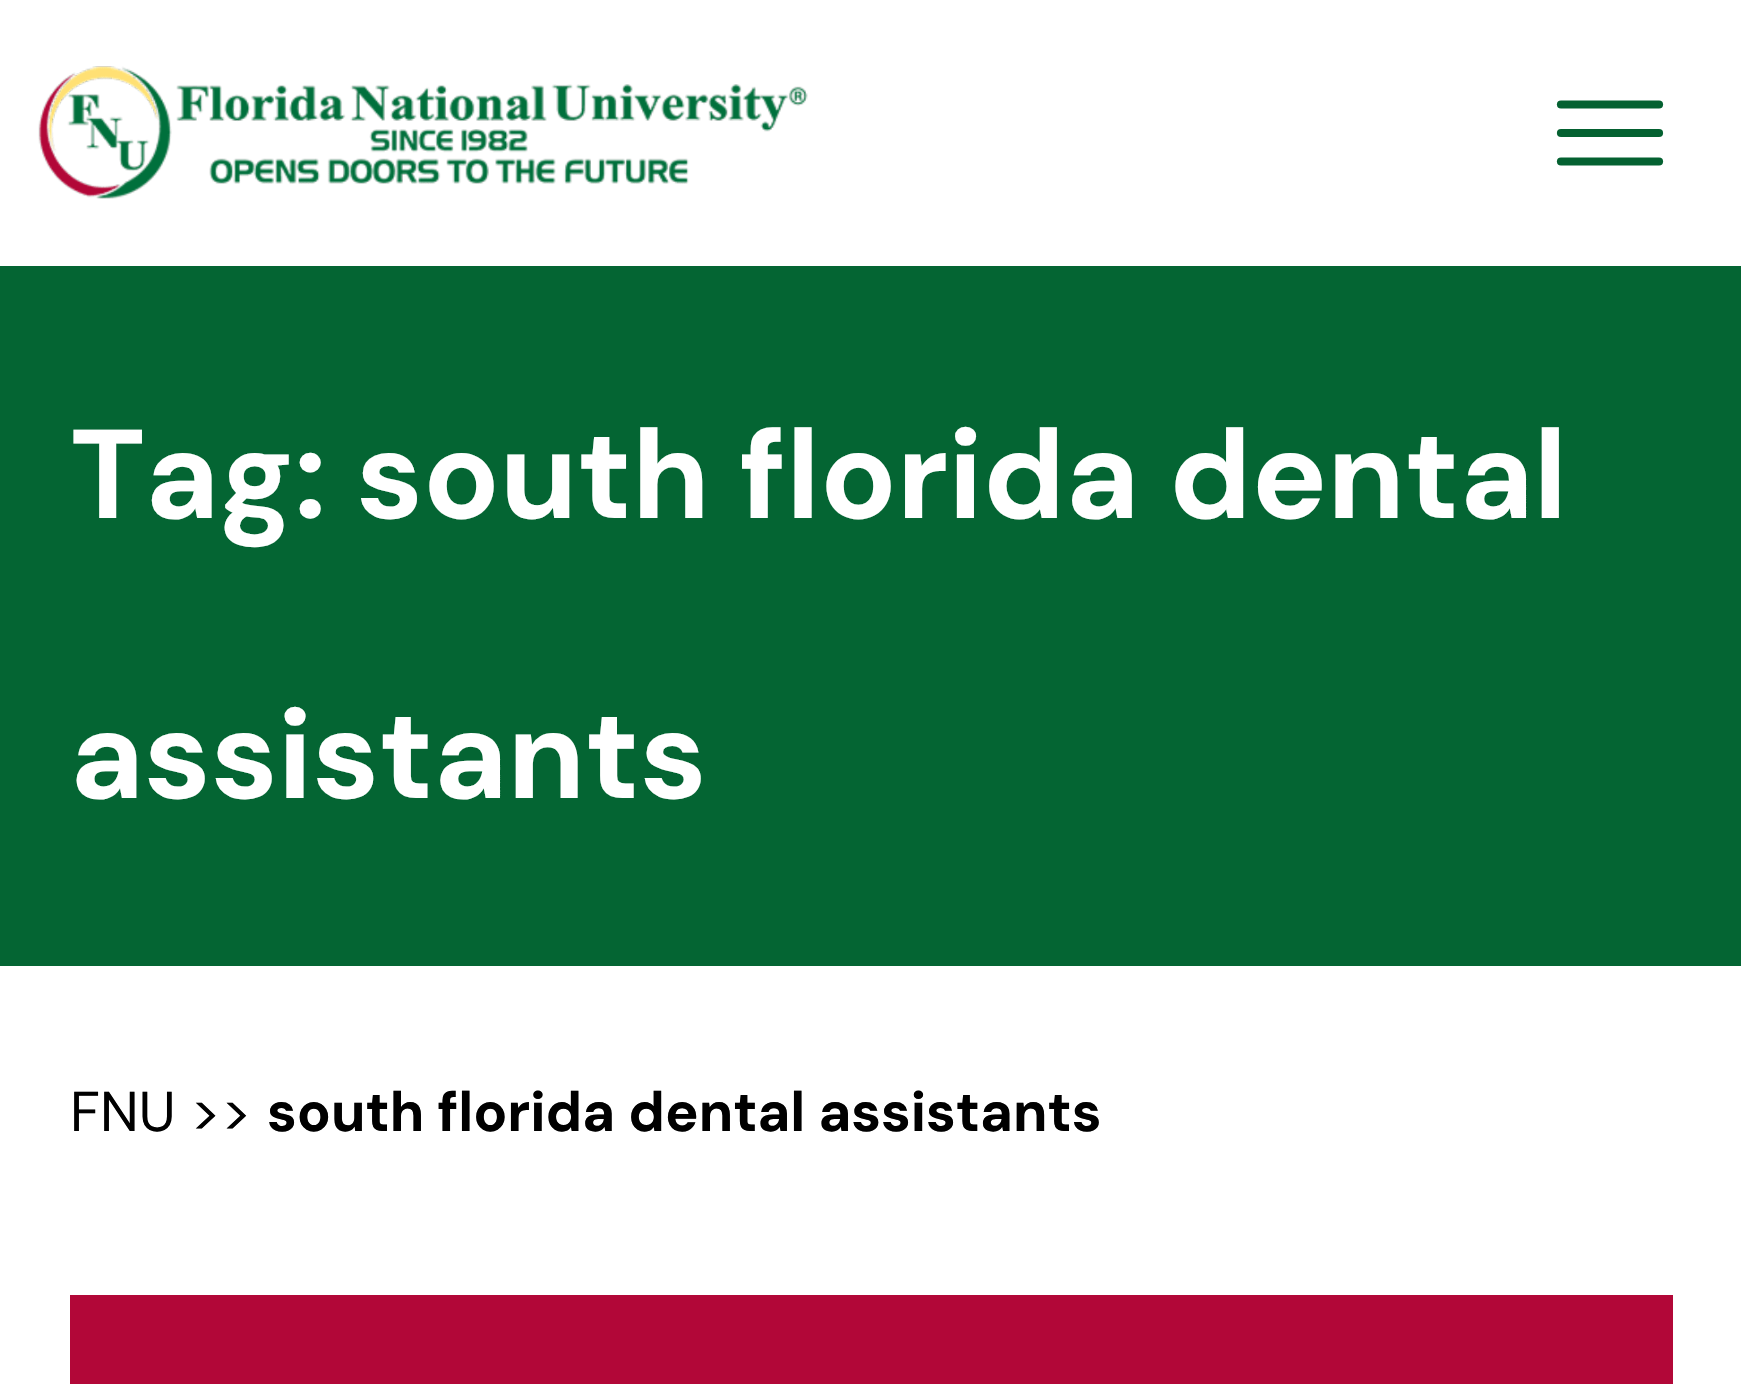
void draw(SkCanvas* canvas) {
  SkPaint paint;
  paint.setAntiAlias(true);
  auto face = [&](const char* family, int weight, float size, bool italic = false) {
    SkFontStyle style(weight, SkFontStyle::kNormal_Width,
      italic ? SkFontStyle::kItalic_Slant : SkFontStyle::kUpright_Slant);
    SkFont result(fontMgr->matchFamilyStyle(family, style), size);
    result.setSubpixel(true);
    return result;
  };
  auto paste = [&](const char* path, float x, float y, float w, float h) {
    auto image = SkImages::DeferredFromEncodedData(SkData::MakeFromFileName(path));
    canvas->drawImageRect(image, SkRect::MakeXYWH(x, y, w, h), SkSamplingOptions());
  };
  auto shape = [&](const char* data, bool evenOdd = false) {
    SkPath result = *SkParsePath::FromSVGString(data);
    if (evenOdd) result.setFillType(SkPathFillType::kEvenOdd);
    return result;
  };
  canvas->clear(0xffffffff);
  paste("img/1.png", 38, 66, 770, 133);
  paint.setStroke(true);
  paint.setStrokeWidth(8.2f);
  paint.setStrokeCap(SkPaint::kRound_Cap);
  paint.setStrokeJoin(SkPaint::kRound_Join);
  paint.setColor(0xff046131);
  canvas->drawPath(shape("M1561 133H1659"), paint);
  canvas->drawPath(shape("M1561 161.5H1659"), paint);
  canvas->drawPath(shape("M1561 104.5H1659"), paint);
  paint.setStroke(false);
  paint.setColor(0xff046533);
  canvas->drawRect(SkRect::MakeXYWH(0, 266, 1741, 700), paint);
  paint.setColor(0xffb20738);
  canvas->drawRect(SkRect::MakeXYWH(70, 1295, 1603, 89), paint);
  auto f0 = face("DM Sans", 700, 126);
  paint.setColor(0xffffffff);
  canvas->drawString("Tag: south florida dental", 70, 518, f0, paint);
  canvas->drawString("assistants", 70, 798, f0, paint);
  auto f1 = face("DM Sans", 400, 56);
  paint.setColor(0xff000000);
  canvas->drawString("FNU >>", 70, 1131, f1, paint);
  auto f2 = face("DM Sans", 700, 56);
  canvas->drawString("south florida dental assistants", 267, 1131, f2, paint);
}
